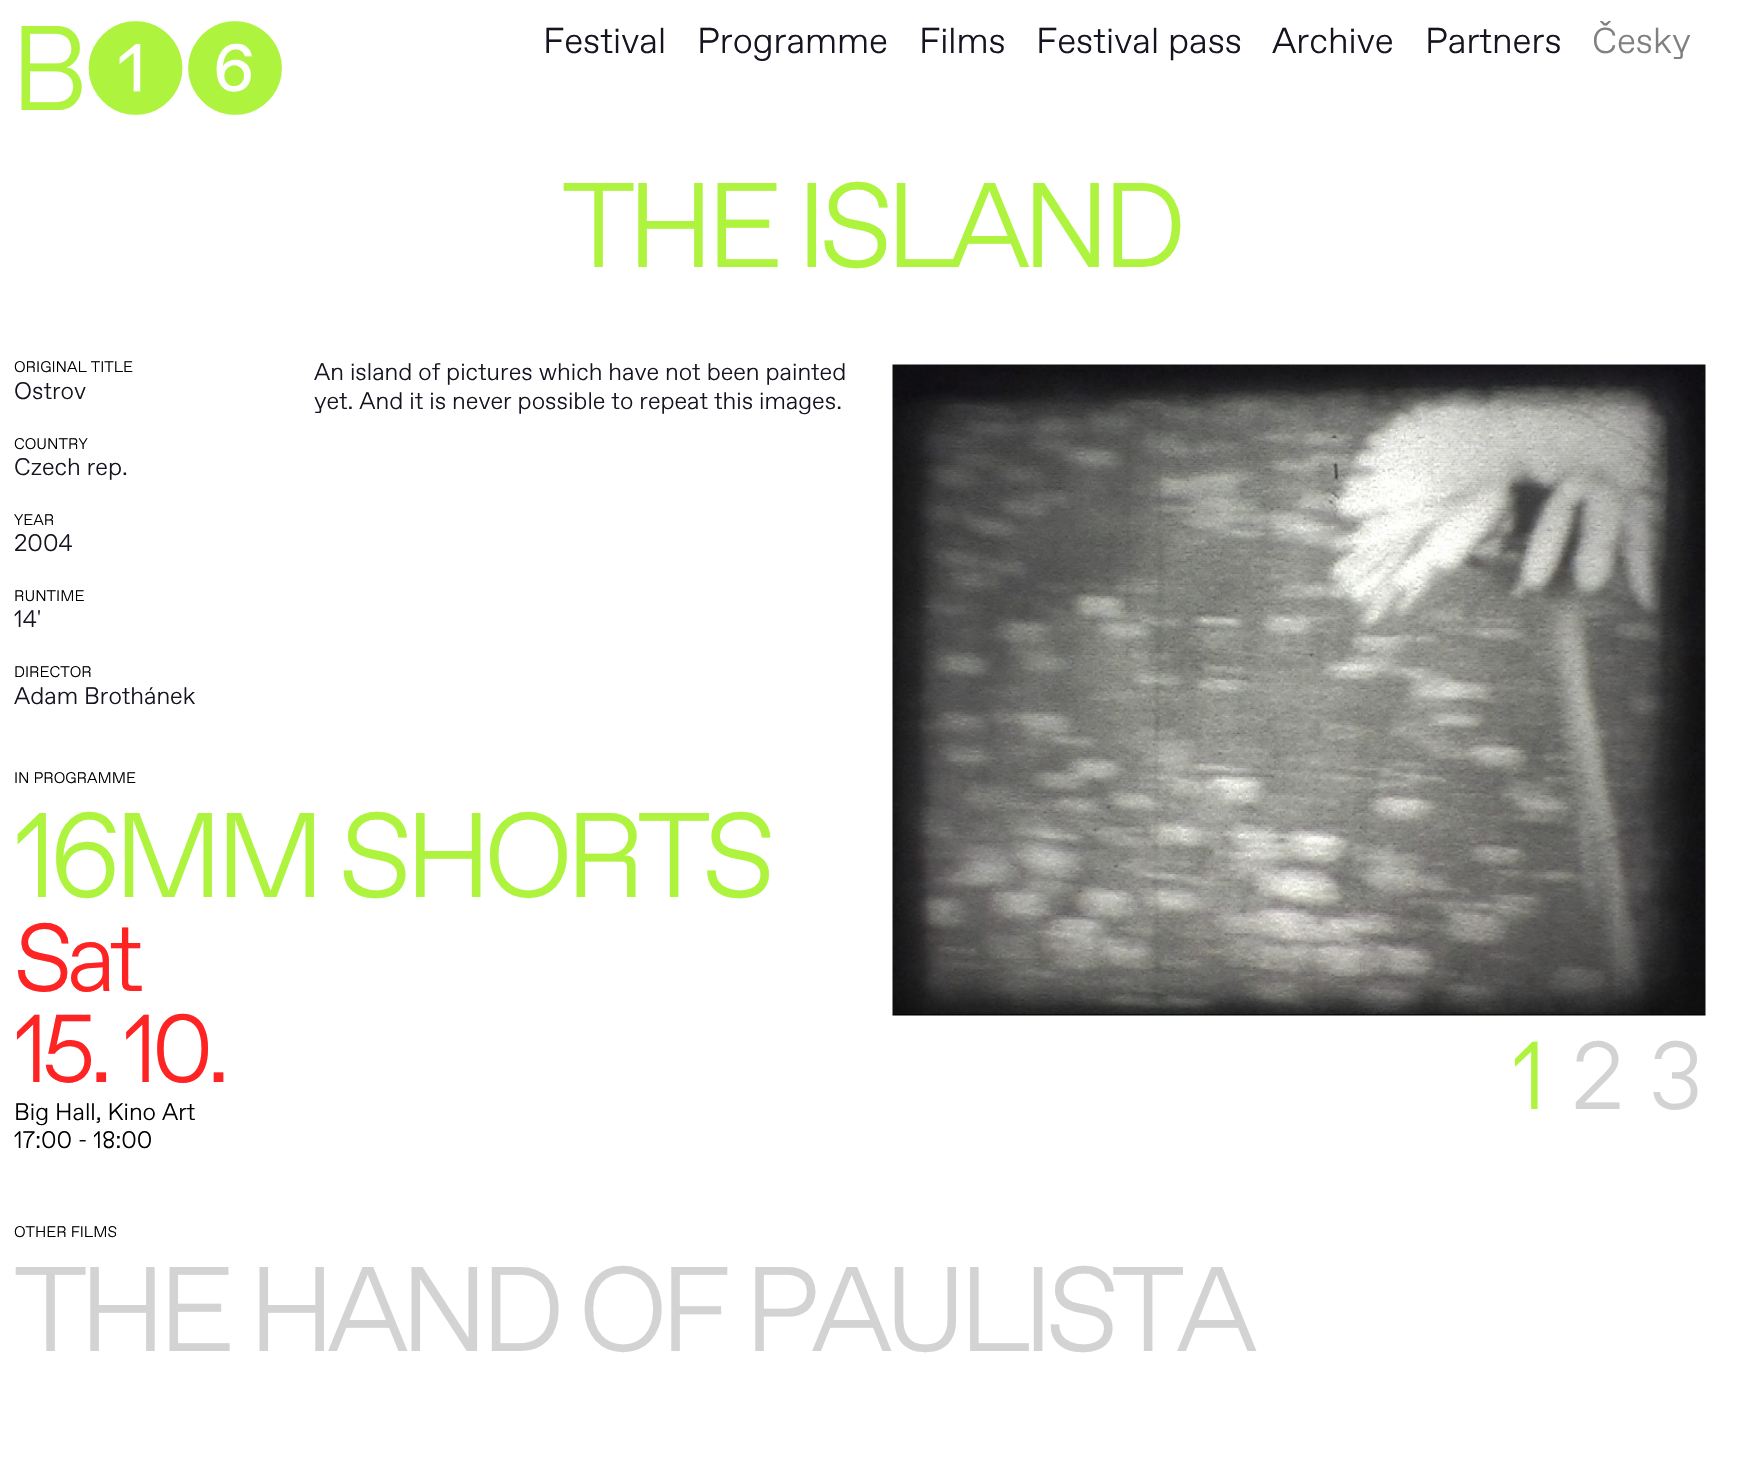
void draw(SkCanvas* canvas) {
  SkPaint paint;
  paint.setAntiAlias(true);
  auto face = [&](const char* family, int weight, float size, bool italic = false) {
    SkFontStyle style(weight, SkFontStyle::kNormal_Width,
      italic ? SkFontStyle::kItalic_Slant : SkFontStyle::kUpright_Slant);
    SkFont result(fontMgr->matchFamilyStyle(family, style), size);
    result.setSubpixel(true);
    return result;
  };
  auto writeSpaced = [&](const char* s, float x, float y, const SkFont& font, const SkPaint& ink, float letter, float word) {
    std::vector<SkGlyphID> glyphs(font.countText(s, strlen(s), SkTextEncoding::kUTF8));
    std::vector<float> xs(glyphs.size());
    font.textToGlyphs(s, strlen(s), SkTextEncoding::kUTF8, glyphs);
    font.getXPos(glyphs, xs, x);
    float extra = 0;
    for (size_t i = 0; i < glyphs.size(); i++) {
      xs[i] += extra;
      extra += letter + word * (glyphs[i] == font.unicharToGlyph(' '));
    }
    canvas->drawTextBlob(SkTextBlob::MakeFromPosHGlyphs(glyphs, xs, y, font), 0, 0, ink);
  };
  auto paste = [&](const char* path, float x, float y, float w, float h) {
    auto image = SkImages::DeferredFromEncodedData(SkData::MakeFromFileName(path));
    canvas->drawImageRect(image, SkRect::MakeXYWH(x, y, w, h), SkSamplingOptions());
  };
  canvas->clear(0xffffffff);
  paste("img/1.png", 892, 364, 814, 652);
  auto f0 = face("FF", 300, 120);
  paint.setColor(0xffaef33e);
  writeSpaced("B➊➏", 10, 110, f0, paint, -6, 0);
  auto f1 = face("FF", 300, 36);
  paint.setColor(0xff151521);
  {
    const struct { const char* s; float x, y; } items[] = {
      {"Festival", 543, 53},
      {"Programme", 697, 53},
      {"Films", 919, 53},
      {"Festival pass", 1036, 53},
      {"Archive", 1272, 53},
      {"Partners", 1425, 53},
    };
    for (auto [s, x, y] : items) {
      canvas->drawString(s, x, y, f1, paint);
    }
  }
  paint.setColor(0xff808080);
  canvas->drawString("Česky", 1592, 53, f1, paint);
  paint.setColor(0xffaef33e);
  writeSpaced("THE ISLAND", 562, 267, f0, paint, -8.4f, 0);
  auto f2 = face("FF", 300, 15.5f);
  paint.setColor(0xff000000);
  canvas->drawString("ORIGINAL TITLE", 14, 372, f2, paint);
  auto f3 = face("FF", 300, 24);
  paint.setColor(0xff151521);
  canvas->drawString("Ostrov", 14, 399, f3, paint);
  paint.setColor(0xff000000);
  canvas->drawString("COUNTRY", 14, 449, f2, paint);
  paint.setColor(0xff151521);
  canvas->drawString("Czech rep.", 14, 475, f3, paint);
  paint.setColor(0xff000000);
  canvas->drawString("YEAR", 14, 525, f2, paint);
  paint.setColor(0xff151521);
  canvas->drawString("2004", 14, 551, f3, paint);
  paint.setColor(0xff000000);
  canvas->drawString("RUNTIME", 14, 601, f2, paint);
  paint.setColor(0xff151521);
  canvas->drawString("14'", 14, 627, f3, paint);
  paint.setColor(0xff000000);
  canvas->drawString("DIRECTOR", 14, 677, f2, paint);
  paint.setColor(0xff151521);
  {
    const struct { const char* s; float x, y; } items[] = {
      {"Adam Brothánek", 14, 704},
      {"An island of pictures which have not been painted", 314, 380},
      {"yet. And it is never possible to repeat this images.", 314, 409},
    };
    for (auto [s, x, y] : items) {
      canvas->drawString(s, x, y, f3, paint);
    }
  }
  paint.setColor(0xff000000);
  canvas->drawString("IN PROGRAMME", 14, 783, f2, paint);
  paint.setColor(0xffaef33e);
  writeSpaced("16MM SHORTS", 14, 897, f0, paint, -8.4f, 0);
  auto f4 = face("FF", 300, 96);
  paint.setColor(0xffff2424);
  writeSpaced("Sat", 14, 991, f4, paint, -6.75f, 0);
  writeSpaced("15. 10.", 14, 1082, f4, paint, -6.75f, 0);
  paint.setColor(0xff000000);
  canvas->drawString("Big Hall, Kino Art", 14, 1120, f3, paint);
  canvas->drawString("17:00 - 18:00", 14, 1148, f3, paint);
  paint.setColor(0xffaef33e);
  canvas->drawString("1", 1512, 1109, f4, paint);
  paint.setColor(0xffd3d3d3);
  canvas->drawString("2 3", 1571, 1109, f4, paint);
  paint.setColor(0xff000000);
  canvas->drawString("OTHER FILMS", 14, 1237, f2, paint);
  paint.setColor(0xffd3d3d3);
  writeSpaced("THE HAND OF PAULISTA", 14, 1351, f0, paint, -8.4f, 0);
}
